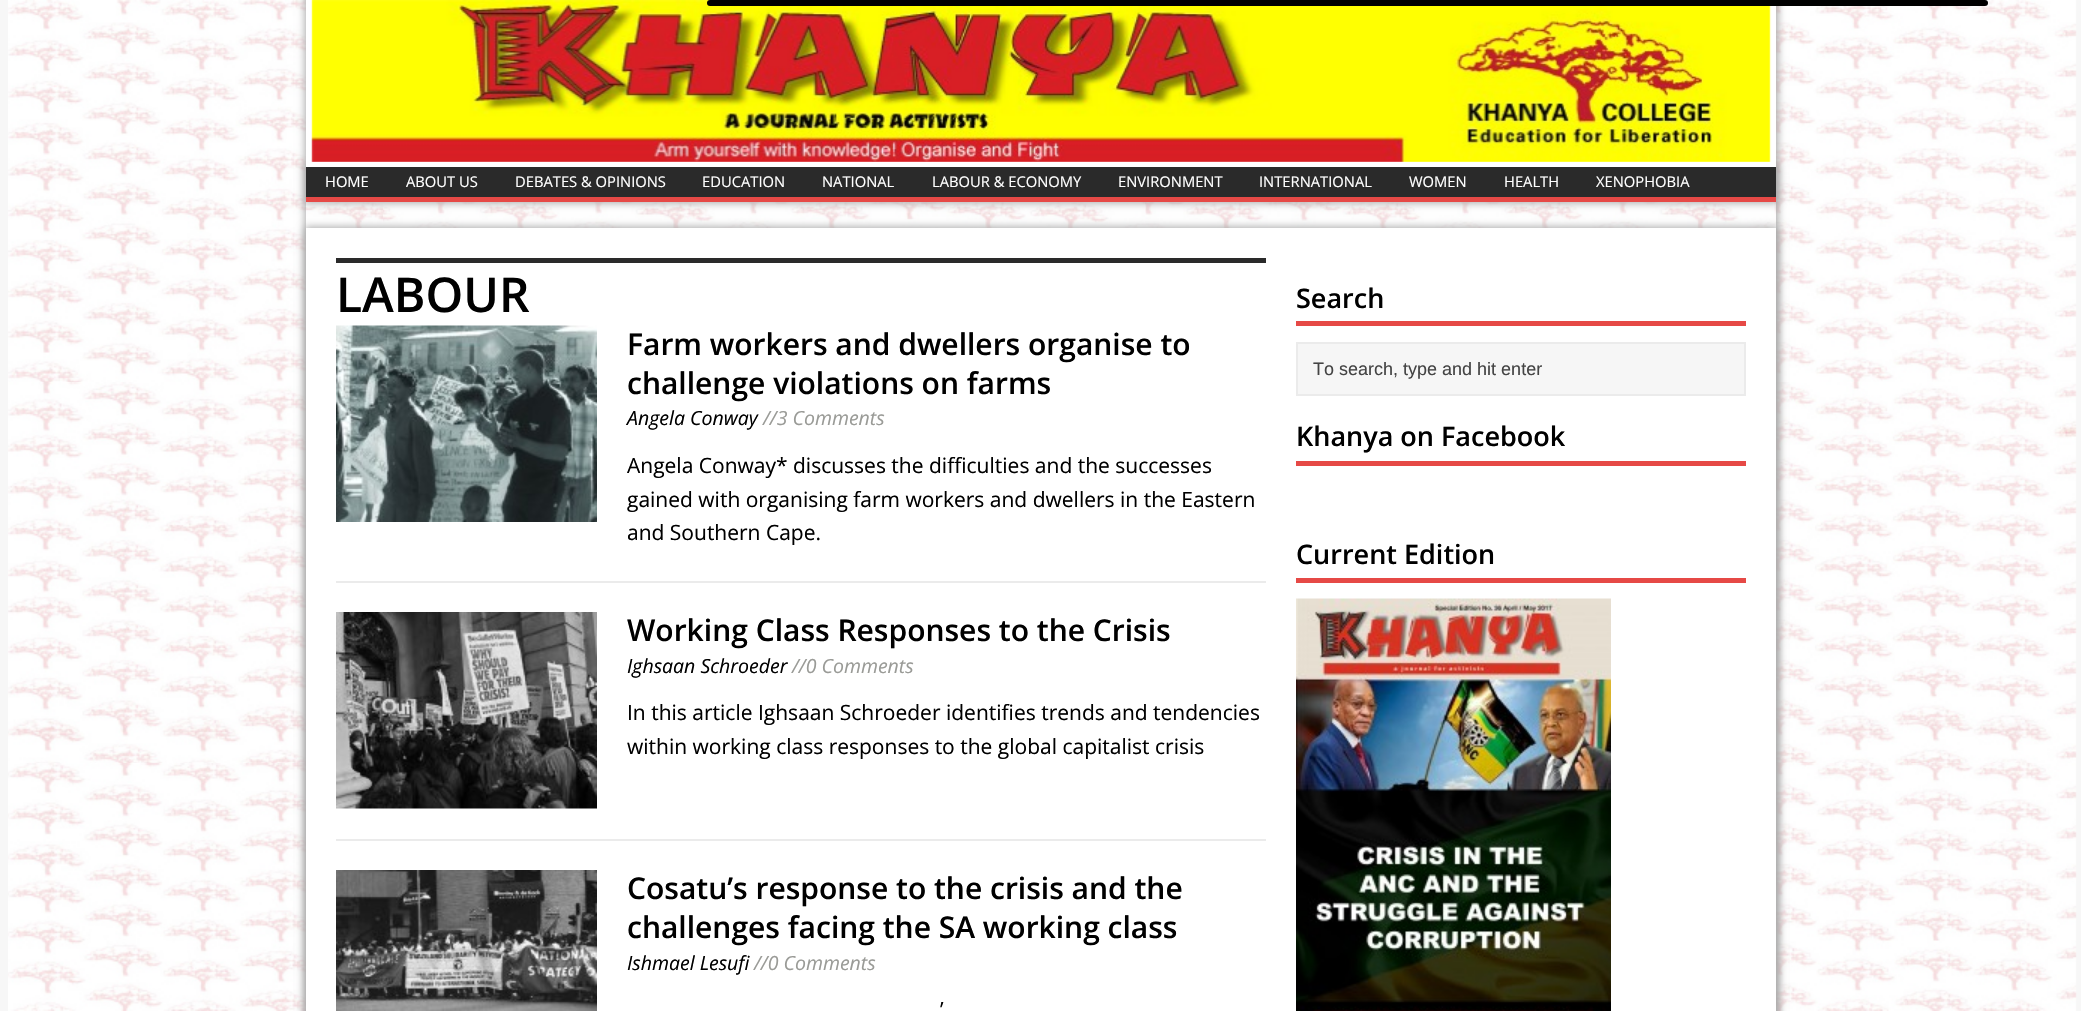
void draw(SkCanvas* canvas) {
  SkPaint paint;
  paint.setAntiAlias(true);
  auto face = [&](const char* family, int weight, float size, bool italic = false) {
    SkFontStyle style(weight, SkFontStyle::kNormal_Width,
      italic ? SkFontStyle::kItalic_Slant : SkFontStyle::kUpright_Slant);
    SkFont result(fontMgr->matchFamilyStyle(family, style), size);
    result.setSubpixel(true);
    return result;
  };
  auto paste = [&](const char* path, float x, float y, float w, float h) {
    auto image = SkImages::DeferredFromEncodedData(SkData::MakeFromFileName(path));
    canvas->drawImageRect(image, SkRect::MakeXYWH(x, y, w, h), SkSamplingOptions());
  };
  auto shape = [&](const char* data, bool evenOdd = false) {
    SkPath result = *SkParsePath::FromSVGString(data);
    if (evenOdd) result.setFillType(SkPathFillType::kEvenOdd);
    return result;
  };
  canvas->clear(0xfff7f7f7);
  paste("img/1.png", 8, 0, 2069, 1011);
  canvas->save();
  canvas->clipPath(shape("M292 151H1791V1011H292ZM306 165H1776V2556H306Z", true), true);
  paint.setColor(0xffa8a8a8);
  paint.setMaskFilter(SkMaskFilter::MakeBlur(kNormal_SkBlurStyle, 4));
  canvas->drawRect(SkRect::MakeXYWH(305, 164, 1473, 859), paint);
  paint.setMaskFilter(nullptr);
  canvas->restore();
  paint.setMaskFilter(SkMaskFilter::MakeBlur(kNormal_SkBlurStyle, 4));
  canvas->drawRect(SkRect::MakeXYWH(305, -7, 1473, 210), paint);
  paint.setMaskFilter(nullptr);
  paint.setColor(0xffffffff);
  canvas->drawRect(SkRect::MakeXYWH(306, 0, 1470, 167), paint);
  paste("img/2.png", 311, 0, 1461, 162);
  paint.setColor(0xff000000);
  canvas->drawRoundRect(SkRect::MakeXYWH(707, 0, 1281, 6), 3, 3, paint);
  paint.setColor(0xffa8a8a8);
  paint.setMaskFilter(SkMaskFilter::MakeBlur(kNormal_SkBlurStyle, 4));
  canvas->drawRect(SkRect::MakeXYWH(305, 227, 1473, 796), paint);
  paint.setMaskFilter(nullptr);
  {
    const struct { float x, y, w, h; SkColor color; } items[] = {
      {306, 167, 1470, 30, 0xff2a2a2a},
      {306, 197, 1470, 5, 0xffe64946},
      {306, 228, 1470, 783, 0xffffffff},
      {336, 258, 930, 5, 0xff2a2a2a},
      {336, 581, 930, 2, 0xffebebeb},
    };
    for (auto [x, y, w, h, color] : items) {
      paint.setColor(color);
      canvas->drawRect(SkRect::MakeXYWH(x, y, w, h), paint);
    }
  }
  paste("img/3.png", 336, 325, 261, 197);
  canvas->drawRect(SkRect::MakeXYWH(336, 839, 930, 2), paint);
  paste("img/4.png", 336, 612, 261, 197);
  paste("img/5.png", 336, 870, 261, 141);
  paint.setColor(0xffe64946);
  canvas->drawRect(SkRect::MakeXYWH(1296, 321, 450, 5), paint);
  paint.setColor(0xfff6f6f6);
  canvas->drawRect(SkRect::MakeXYWH(1297, 343, 448, 52), paint);
  paint.setStroke(true);
  paint.setStrokeWidth(2);
  paint.setColor(0xffebebeb);
  canvas->drawRect(SkRect::MakeXYWH(1297, 343, 448, 52), paint);
  paint.setStroke(false);
  paint.setColor(0xffe64946);
  canvas->drawRect(SkRect::MakeXYWH(1296, 461, 450, 5), paint);
  canvas->drawRect(SkRect::MakeXYWH(1296, 578, 450, 5), paint);
  paste("img/6.png", 1296, 598, 315, 413);
  auto f0 = face("Open Sans", 400, 14.75f);
  paint.setColor(0xffffffff);
  {
    const struct { const char* s; float x, y; } items[] = {
      {"HOME", 325, 187},
      {"ABOUT US", 406, 187},
      {"DEBATES & OPINIONS", 515, 187},
      {"EDUCATION", 702, 187},
      {"NATIONAL", 822, 187},
      {"LABOUR & ECONOMY", 932, 187},
      {"ENVIRONMENT", 1118, 187},
      {"INTERNATIONAL", 1259, 187},
      {"WOMEN", 1409, 187},
      {"HEALTH", 1504, 187},
      {"XENOPHOBIA", 1596, 187},
    };
    for (auto [s, x, y] : items) {
      canvas->drawString(s, x, y, f0, paint);
    }
  }
  auto f1 = face("Open Sans", 600, 48);
  paint.setColor(0xff000000);
  canvas->drawString("LABOUR", 336, 312, f1, paint);
  auto f2 = face("Open Sans", 600, 30);
  canvas->drawString("Farm workers and dwellers organise to", 627, 355, f2, paint);
  canvas->drawString("challenge violations on farms", 627, 394, f2, paint);
  auto f3 = face("Open Sans", 400, 19.5f, true);
  canvas->drawString("Angela Conway", 627, 425, f3, paint);
  paint.setColor(0xff9a9b97);
  canvas->drawString("//3 Comments", 763, 425, f3, paint);
  auto f4 = face("Open Sans", 400, 21);
  paint.setColor(0xff000000);
  {
    const struct { const char* s; float x, y; } items[] = {
      {"Angela Conway* discusses the difficulties and the successes", 627, 473},
      {"gained with organising farm workers and dwellers in the Eastern", 627, 507},
      {"and Southern Cape.", 627, 540},
    };
    for (auto [s, x, y] : items) {
      canvas->drawString(s, x, y, f4, paint);
    }
  }
  canvas->drawString("Working Class Responses to the Crisis", 627, 641, f2, paint);
  canvas->drawString("Ighsaan Schroeder", 627, 673, f3, paint);
  paint.setColor(0xff9a9b97);
  canvas->drawString("//0 Comments", 792, 673, f3, paint);
  paint.setColor(0xff000000);
  canvas->drawString("In this article Ighsaan Schroeder identifies trends and tendencies", 627, 720, f4, paint);
  canvas->drawString("within working class responses to the global capitalist crisis", 627, 754, f4, paint);
  canvas->drawString("Cosatu’s response to the crisis and the", 627, 899, f2, paint);
  canvas->drawString("challenges facing the SA working class", 627, 938, f2, paint);
  canvas->drawString("Ishmael Lesufi", 627, 970, f3, paint);
  paint.setColor(0xff9a9b97);
  canvas->drawString("//0 Comments", 754, 970, f3, paint);
  paint.setColor(0xff000000);
  canvas->drawString("’", 940, 1017, f4, paint);
  auto f5 = face("Open Sans", 600, 27);
  canvas->drawString("Search", 1296, 308, f5, paint);
  auto f6 = face("Liberation Sans", 400, 18);
  paint.setColor(0xff444444);
  canvas->drawString("To search, type and hit enter", 1313, 375, f6, paint);
  paint.setColor(0xff000000);
  canvas->drawString("Khanya on Facebook", 1296, 446, f5, paint);
  canvas->drawString("Current Edition", 1296, 564, f5, paint);
}
